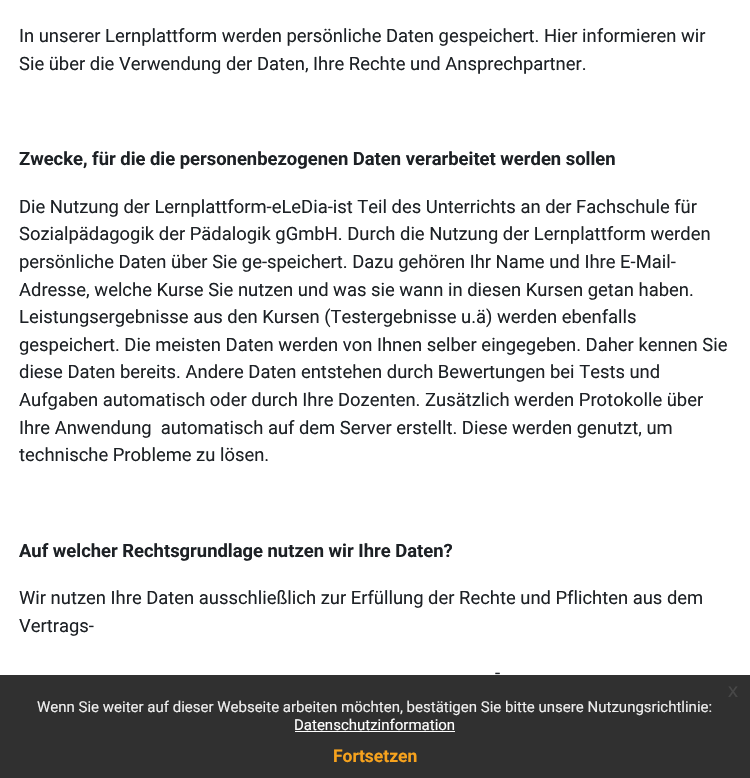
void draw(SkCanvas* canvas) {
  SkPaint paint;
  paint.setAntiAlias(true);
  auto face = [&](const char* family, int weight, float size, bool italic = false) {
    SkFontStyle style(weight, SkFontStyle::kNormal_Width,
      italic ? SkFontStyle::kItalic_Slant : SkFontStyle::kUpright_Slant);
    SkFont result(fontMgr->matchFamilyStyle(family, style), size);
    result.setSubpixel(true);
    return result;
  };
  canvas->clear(0xffffffff);
  paint.setColor(0xe6191919);
  canvas->drawRect(SkRect::MakeXYWH(0, 675, 750, 103), paint);
  paint.setColor(0xffffffff);
  canvas->drawRect(SkRect::MakeXYWH(295, 731, 160, 1), paint);
  auto f0 = face("Roboto", 400, 18.4f);
  paint.setColor(0xff1d2125);
  canvas->drawString("In unserer Lernplattform werden persönliche Daten gespeichert. Hier informieren wir", 19, 42, f0, paint);
  canvas->drawString("Sie über die Verwendung der Daten, Ihre Rechte und Ansprechpartner.", 19, 70, f0, paint);
  auto f1 = face("Roboto", 700, 18.4f);
  canvas->drawString("Zwecke, für die die personenbezogenen Daten verarbeitet werden sollen", 19, 165, f1, paint);
  {
    const struct { const char* s; float x, y; } items[] = {
      {"Die Nutzung der Lernplattform-eLeDia-ist Teil des Unterrichts an der Fachschule für", 19, 213},
      {"Sozialpädagogik der Pädalogik gGmbH. Durch die Nutzung der Lernplattform werden", 19, 240},
      {"persönliche Daten über Sie ge-speichert. Dazu gehören Ihr Name und Ihre E-Mail-", 19, 268},
      {"Adresse, welche Kurse Sie nutzen und was sie wann in diesen Kursen getan haben.", 19, 296},
      {"Leistungsergebnisse aus den Kursen (Testergebnisse u.ä) werden ebenfalls", 19, 323},
      {"gespeichert. Die meisten Daten werden von Ihnen selber eingegeben. Daher kennen Sie", 19, 351},
      {"diese Daten bereits. Andere Daten entstehen durch Bewertungen bei Tests und", 19, 378},
      {"Aufgaben automatisch oder durch Ihre Dozenten. Zusätzlich werden Protokolle über", 19, 406},
      {"Ihre Anwendung  automatisch auf dem Server erstellt. Diese werden genutzt, um", 19, 434},
      {"technische Probleme zu lösen.", 19, 461},
    };
    for (auto [s, x, y] : items) {
      canvas->drawString(s, x, y, f0, paint);
    }
  }
  canvas->drawString("Auf welcher Rechtsgrundlage nutzen wir Ihre Daten?", 19, 557, f1, paint);
  {
    const struct { const char* s; float x, y; } items[] = {
      {"Wir nutzen Ihre Daten ausschließlich zur Erfüllung der Rechte und Pflichten aus dem", 19, 604},
      {"Vertrags-", 19, 632},
      {"-", 495, 679},
    };
    for (auto [s, x, y] : items) {
      canvas->drawString(s, x, y, f0, paint);
    }
  }
  auto f2 = face("Liberation Sans", 400, 20);
  paint.setColor(0xff474747);
  canvas->drawString("x", 728, 697, f2, paint);
  auto f3 = face("Roboto", 400, 15);
  paint.setColor(0xffefefef);
  canvas->drawString("Wenn Sie weiter auf dieser Webseite arbeiten möchten, bestätigen Sie bitte unsere Nutzungsrichtlinie:", 37, 712, f3, paint);
  paint.setColor(0xffffffff);
  canvas->drawString("Datenschutzinformation", 294, 730, f3, paint);
  auto f4 = face("Roboto", 700, 17.5f);
  paint.setColor(0xfff6a21d);
  canvas->drawString("Fortsetzen", 333, 762, f4, paint);
}
